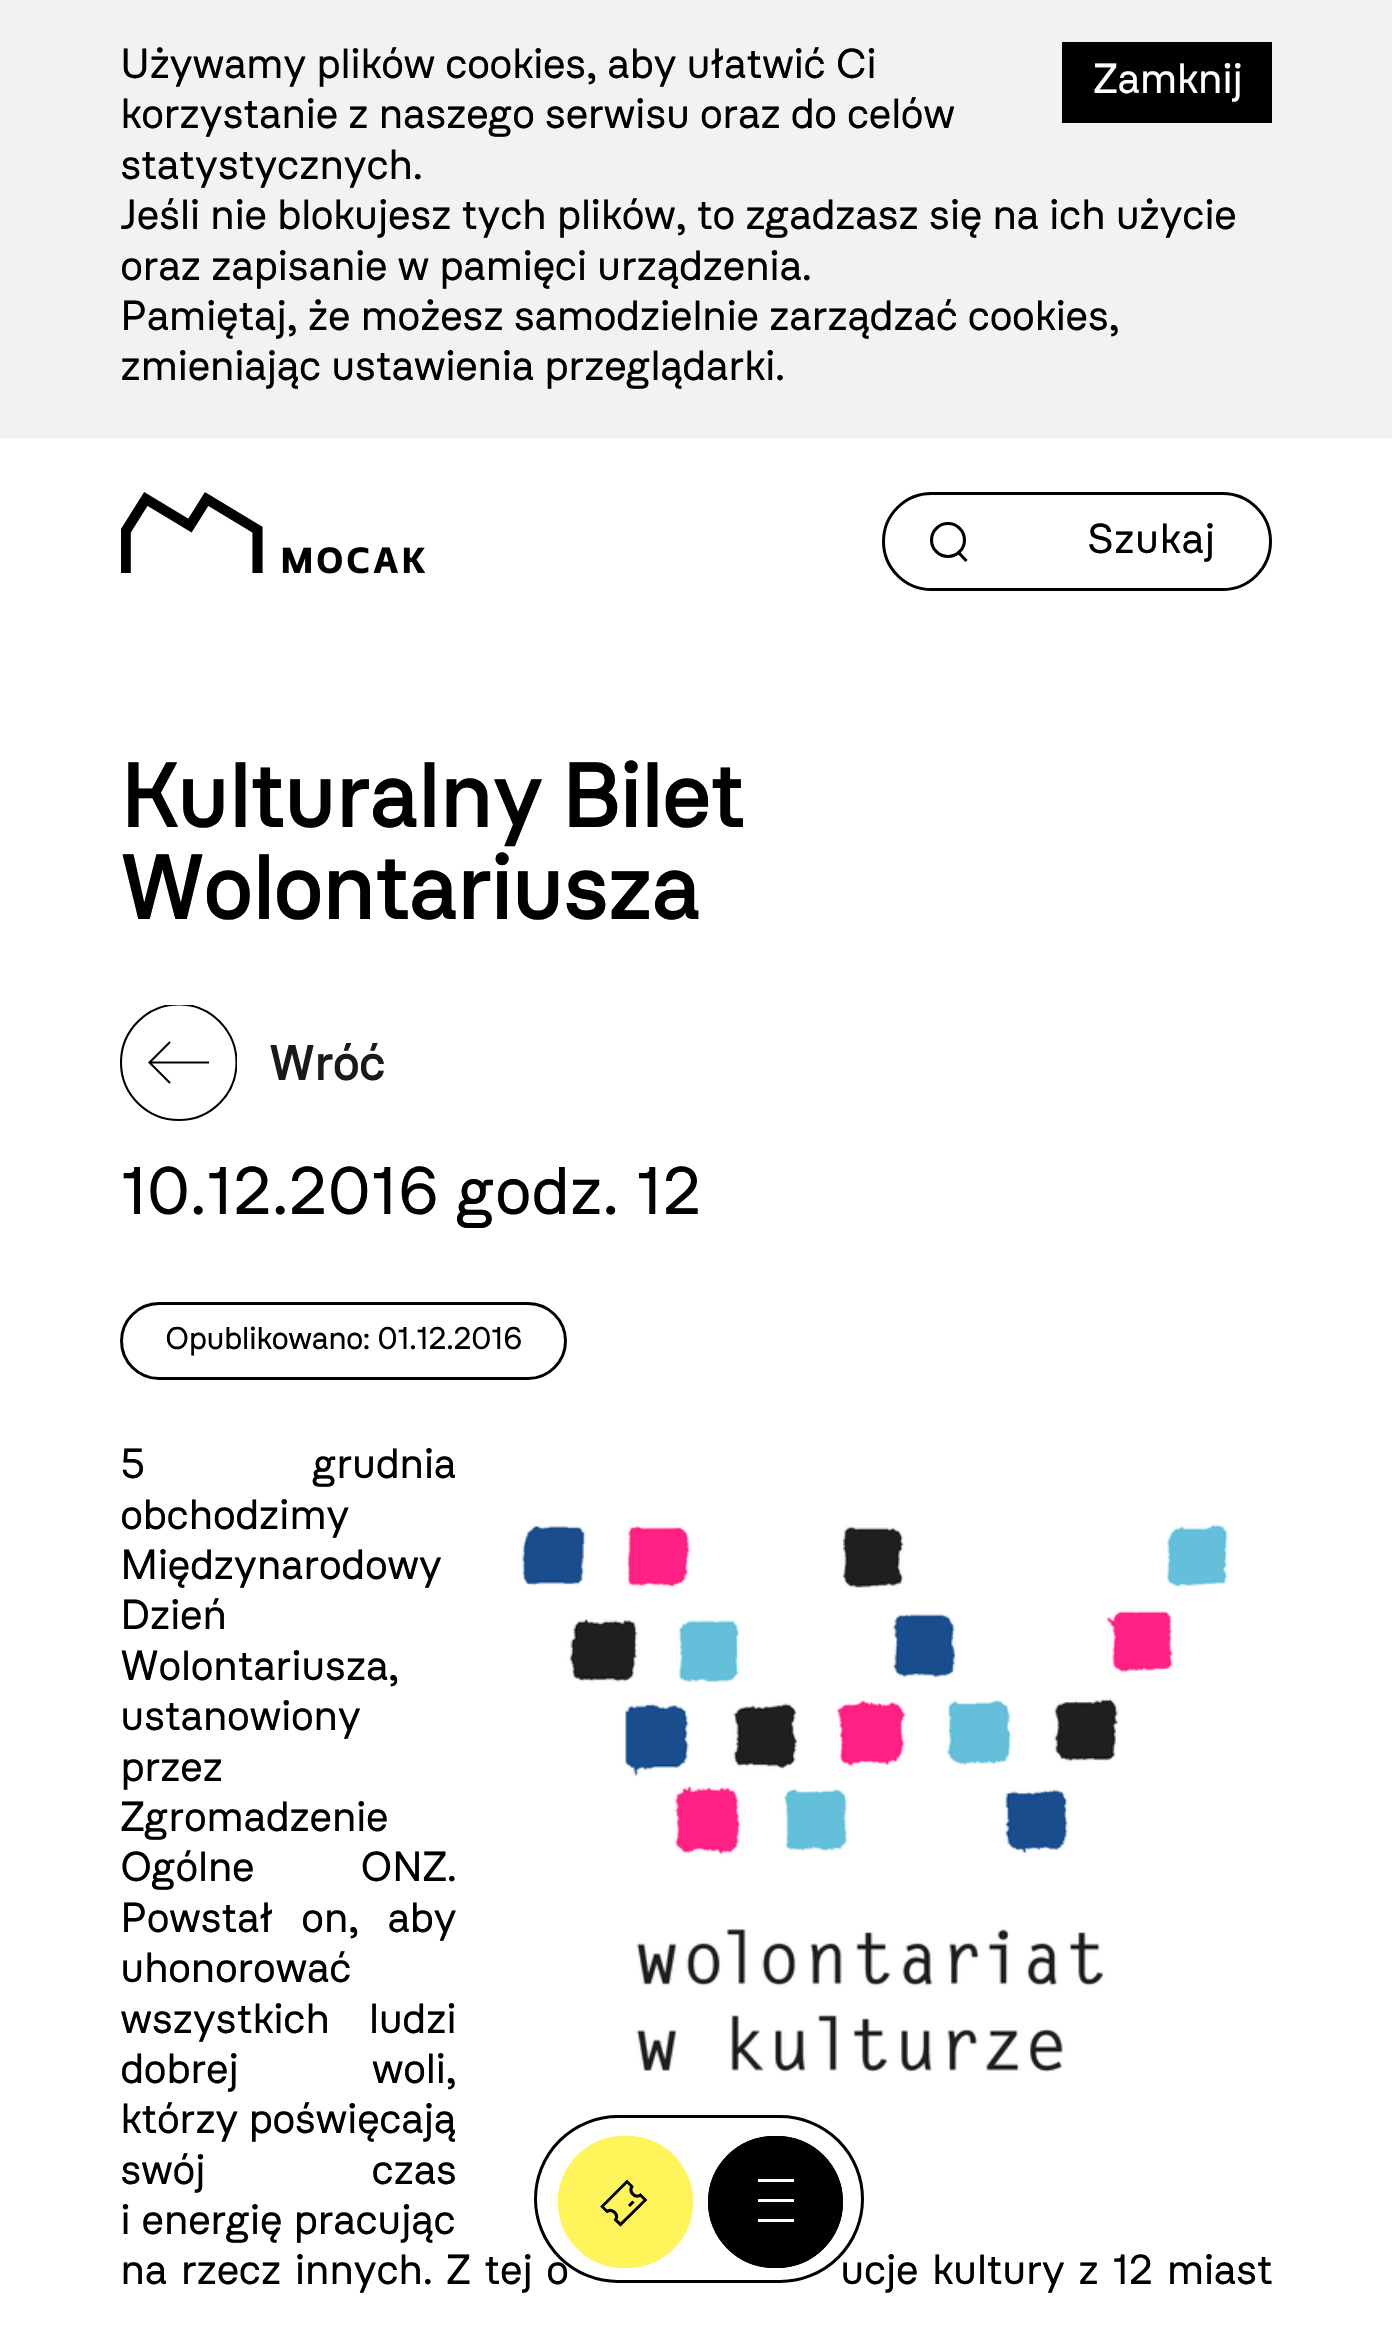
void draw(SkCanvas* canvas) {
  SkPaint paint;
  paint.setAntiAlias(true);
  auto face = [&](const char* family, int weight, float size, bool italic = false) {
    SkFontStyle style(weight, SkFontStyle::kNormal_Width,
      italic ? SkFontStyle::kItalic_Slant : SkFontStyle::kUpright_Slant);
    SkFont result(fontMgr->matchFamilyStyle(family, style), size);
    result.setSubpixel(true);
    return result;
  };
  auto writeSpaced = [&](const char* s, float x, float y, const SkFont& font, const SkPaint& ink, float letter, float word) {
    std::vector<SkGlyphID> glyphs(font.countText(s, strlen(s), SkTextEncoding::kUTF8));
    std::vector<float> xs(glyphs.size());
    font.textToGlyphs(s, strlen(s), SkTextEncoding::kUTF8, glyphs);
    font.getXPos(glyphs, xs, x);
    float extra = 0;
    for (size_t i = 0; i < glyphs.size(); i++) {
      xs[i] += extra;
      extra += letter + word * (glyphs[i] == font.unicharToGlyph(' '));
    }
    canvas->drawTextBlob(SkTextBlob::MakeFromPosHGlyphs(glyphs, xs, y, font), 0, 0, ink);
  };
  auto paste = [&](const char* path, float x, float y, float w, float h) {
    auto image = SkImages::DeferredFromEncodedData(SkData::MakeFromFileName(path));
    canvas->drawImageRect(image, SkRect::MakeXYWH(x, y, w, h), SkSamplingOptions());
  };
  auto shape = [&](const char* data, bool evenOdd = false) {
    SkPath result = *SkParsePath::FromSVGString(data);
    if (evenOdd) result.setFillType(SkPathFillType::kEvenOdd);
    return result;
  };
  canvas->clear(0xffffffff);
  paint.setColor(0xfff2f2f2);
  canvas->drawRect(SkRect::MakeXYWH(0, 0, 1392, 438), paint);
  paint.setColor(0xff000000);
  canvas->drawRect(SkRect::MakeXYWH(1062, 42, 210, 81), paint);
  paste("img/1.png", 121, 492, 304, 82);
  paint.setStroke(true);
  paint.setStrokeWidth(3.1f);
  canvas->drawCircle(948, 540, 16.5f, paint);
  canvas->drawPath(shape("M957.5 551.5L966.5 561"), paint);
  paint.setStrokeWidth(3);
  canvas->drawRoundRect(SkRect::MakeXYWH(883.5f, 493.5f, 387, 96), 48, 48, paint);
  canvas->save();
  canvas->clipRect(SkRect::MakeXYWH(120, 1005, 117, 117));
  paint.setStrokeWidth(2.1f);
  canvas->drawPath(shape("M179 1120C147 1120 121 1094.5 121 1062.5C121 1030.5 147 1004.5 179 1004.5C210.5 1004.5 236.5 1030.5 236.5 1062.5C236.5 1094.5 210.5 1120 179 1120Z"), paint);
  canvas->restore();
  canvas->drawPath(shape("M209 1062.5H149.5M170 1083L149.5 1062.5L170 1042"), paint);
  paint.setStrokeWidth(3);
  canvas->drawRoundRect(SkRect::MakeXYWH(121.5f, 1303.5f, 444, 75), 37.5f, 37.5f, paint);
  paste("img/2.png", 522, 1524, 706, 549);
  canvas->drawRoundRect(SkRect::MakeXYWH(535.5f, 2116.5f, 327, 165), 82.5f, 82.5f, paint);
  paint.setStroke(false);
  canvas->drawRoundRect(SkRect::MakeXYWH(708, 2136, 135, 132), 66, 66, paint);
  {
    const struct { float x, y, w, h; SkColor color; } items[] = {
      {758, 2219, 36, 3, 0xffffffff},
      {758, 2199, 36, 3, 0xffffffff},
      {758, 2179, 36, 3, 0xffffffff},
    };
    for (auto [x, y, w, h, color] : items) {
      paint.setColor(color);
      canvas->drawRect(SkRect::MakeXYWH(x, y, w, h), paint);
    }
  }
  paint.setStroke(true);
  paint.setStrokeWidth(6);
  paint.setColor(0xff000000);
  canvas->drawRoundRect(SkRect::MakeXYWH(711, 2139, 129, 126), 63, 63, paint);
  auto f0 = face("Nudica", 400, 42);
  paint.setStroke(false);
  {
    const struct { const char* s; float x, y; } items[] = {
      {"Używamy plików cookies, aby ułatwić Ci", 120, 78},
      {"korzystanie z naszego serwisu oraz do celów", 120, 128},
      {"statystycznych.", 120, 179},
      {"Jeśli nie blokujesz tych plików, to zgadzasz się na ich użycie", 120, 229},
      {"oraz zapisanie w pamięci urządzenia.", 120, 280},
      {"Pamiętaj, że możesz samodzielnie zarządzać cookies,", 120, 330},
      {"zmieniając ustawienia przeglądarki.", 120, 380},
    };
    for (auto [s, x, y] : items) {
      writeSpaced(s, x, y, f0, paint, -0.85f, 0);
    }
  }
  paint.setColor(0xffffffff);
  writeSpaced("Zamknij", 1093, 93, f0, paint, -0.85f, 0);
  paint.setColor(0xff000000);
  canvas->drawString("Szukaj", 1087, 553, f0, paint);
  auto f1 = face("Nudica", 500, 92.5f);
  writeSpaced("Kulturalny Bilet", 120, 827, f1, paint, -1.8f, 0);
  writeSpaced("Wolontariusza", 120, 919, f1, paint, -1.8f, 0);
  auto f2 = face("Nudica", 500, 50);
  paint.setColor(0xff1a1a1a);
  writeSpaced("Wróć", 269, 1080, f2, paint, -0.85f, 0);
  auto f3 = face("Nudica", 400, 67.25f);
  paint.setColor(0xff000000);
  writeSpaced("10.12.2016 godz. 12", 120, 1214, f3, paint, -0.85f, 0);
  auto f4 = face("Nudica", 400, 31.5f);
  writeSpaced("Opublikowano: 01.12.2016", 165, 1349, f4, paint, -0.85f, 0);
  writeSpaced("5 grudnia", 120, 1478, f0, paint, -0.85f, 157);
  {
    const struct { const char* s; float x, y; } items[] = {
      {"obchodzimy", 120, 1529},
      {"Międzynarodowy", 120, 1579},
      {"Dzień", 120, 1629},
      {"Wolontariusza,", 120, 1680},
      {"ustanowiony", 120, 1730},
      {"przez", 120, 1781},
      {"Zgromadzenie", 120, 1831},
    };
    for (auto [s, x, y] : items) {
      writeSpaced(s, x, y, f0, paint, -0.85f, 0);
    }
  }
  writeSpaced("Ogólne ONZ.", 120, 1881, f0, paint, -0.85f, 96);
  writeSpaced("Powstał on, aby", 120, 1932, f0, paint, -0.85f, 18);
  writeSpaced("uhonorować", 120, 1982, f0, paint, -0.85f, 0);
  writeSpaced("wszystkich ludzi", 120, 2033, f0, paint, -0.85f, 29);
  writeSpaced("dobrej woli,", 120, 2083, f0, paint, -0.85f, 123);
  writeSpaced("którzy poświęcają", 120, 2133, f0, paint, -0.85f, 0);
  writeSpaced("swój czas", 120, 2184, f0, paint, -0.85f, 156);
  writeSpaced("i energię pracując", 120, 2234, f0, paint, -0.85f, 1);
  writeSpaced("na rzecz innych. Z tej o", 120, 2284, f0, paint, -0.85f, 3.5f);
  writeSpaced("ucje kultury z 12 miast", 840, 2284, f0, paint, -0.85f, 3.5f);
  paint.setColor(0xfffff45a);
  canvas->drawRoundRect(SkRect::MakeXYWH(558, 2136, 135, 132), 66, 66, paint);
  canvas->save();
  canvas->clipPath(shape("M600 2206.5L627 2179.5L647.5 2200L620.5 2227Z"), true);
  paint.setStroke(true);
  paint.setStrokeWidth(3.1f);
  paint.setColor(0xff000000);
  canvas->drawPath(shape("M602 2206.5L627 2181.5L632 2186.5C628.5 2192 635 2198.5 640.5 2195L645.5 2200L620.5 2224.5L615.5 2220C619 2214.5 612.5 2208 607 2211.5Z"), paint);
  canvas->restore();
  canvas->drawPath(shape("M629 2206L633.5 2201.5"), paint);
  paint.setStrokeWidth(6);
  paint.setColor(0xfffff45a);
  canvas->drawRoundRect(SkRect::MakeXYWH(561, 2139, 129, 126), 63, 63, paint);
}
